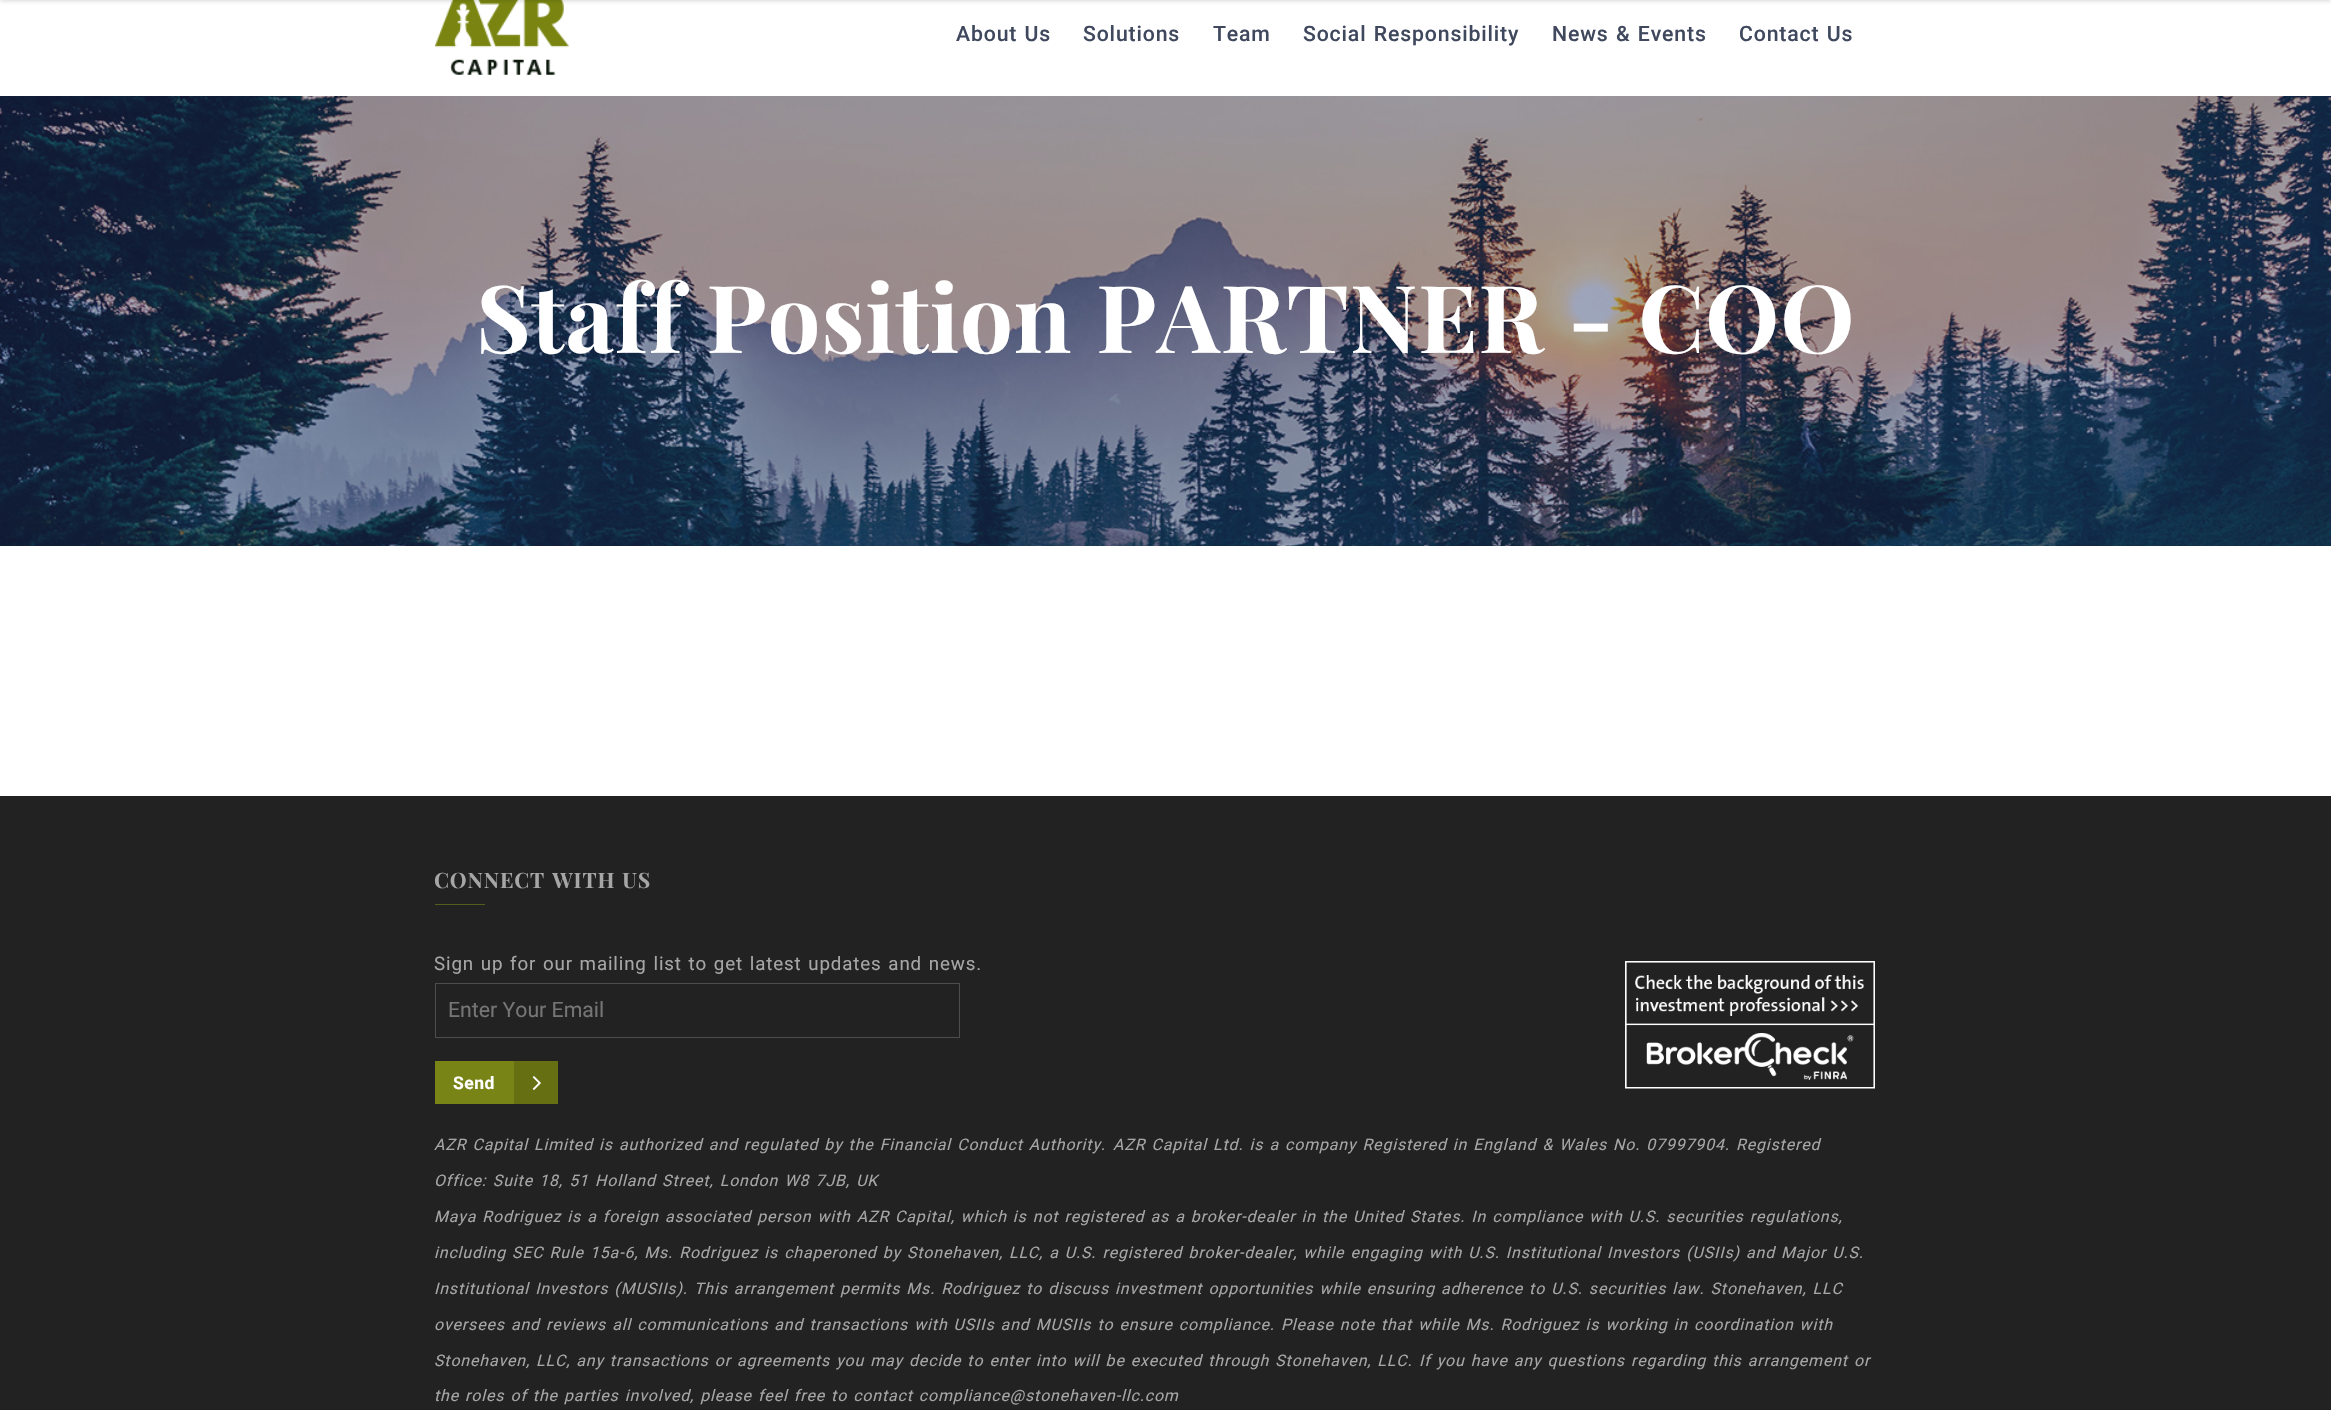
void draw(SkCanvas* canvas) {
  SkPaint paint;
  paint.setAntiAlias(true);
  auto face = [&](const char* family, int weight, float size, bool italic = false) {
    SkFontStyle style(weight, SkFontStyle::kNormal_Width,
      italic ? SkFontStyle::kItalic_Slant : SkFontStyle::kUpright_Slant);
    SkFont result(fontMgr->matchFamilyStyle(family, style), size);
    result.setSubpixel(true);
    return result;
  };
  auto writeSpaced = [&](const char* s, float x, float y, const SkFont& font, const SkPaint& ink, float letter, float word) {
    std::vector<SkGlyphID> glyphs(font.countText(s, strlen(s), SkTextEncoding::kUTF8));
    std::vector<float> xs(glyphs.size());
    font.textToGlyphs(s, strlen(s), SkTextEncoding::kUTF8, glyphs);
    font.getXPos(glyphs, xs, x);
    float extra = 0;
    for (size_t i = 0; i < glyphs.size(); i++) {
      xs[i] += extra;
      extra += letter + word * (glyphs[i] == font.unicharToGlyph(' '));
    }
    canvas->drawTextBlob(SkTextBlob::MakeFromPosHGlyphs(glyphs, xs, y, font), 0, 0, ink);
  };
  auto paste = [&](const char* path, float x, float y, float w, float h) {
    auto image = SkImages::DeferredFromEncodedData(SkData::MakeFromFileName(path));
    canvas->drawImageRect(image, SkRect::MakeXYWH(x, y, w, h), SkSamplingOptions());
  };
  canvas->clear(0xffffffff);
  paste("img/1.png", 435, 0, 134, 75);
  paint.setColor(0x26000000);
  paint.setMaskFilter(SkMaskFilter::MakeBlur(kNormal_SkBlurStyle, 2));
  canvas->drawRect(SkRect::MakeXYWH(0, -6, 2331, 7), paint);
  paint.setMaskFilter(nullptr);
  paste("img/2.png", 0, 96, 2331, 450);
  paint.setColor(0xff222222);
  canvas->drawRect(SkRect::MakeXYWH(0, 796, 2331, 614), paint);
  paint.setColor(0xff565d1b);
  canvas->drawRect(SkRect::MakeXYWH(435, 904, 50, 1), paint);
  paint.setStroke(true);
  paint.setStrokeWidth(1);
  paint.setColor(0xff4d4d4d);
  canvas->drawRect(SkRect::MakeXYWH(435.5f, 983.5f, 524, 54), paint);
  paint.setStroke(false);
  paint.setColor(0xff788416);
  canvas->drawRect(SkRect::MakeXYWH(435, 1061, 79, 43), paint);
  paint.setColor(0xff667013);
  canvas->drawRect(SkRect::MakeXYWH(514, 1061, 44, 43), paint);
  paste("img/3.png", 532, 1076, 9, 14);
  paste("img/4.png", 1625, 961, 250, 128);
  auto f0 = face("Roboto", 500, 21.25f);
  paint.setColor(0xff3f485d);
  writeSpaced("About Us", 956, 41, f0, paint, 0.85f, 1.25f);
  writeSpaced("Solutions", 1083, 41, f0, paint, 0.85f, 0);
  writeSpaced("Team", 1213, 41, f0, paint, 0.85f, 0);
  {
    const struct { const char* s; float x, y; } items[] = {
      {"Social Responsibility", 1303, 41},
      {"News & Events", 1552, 41},
      {"Contact Us", 1739, 41},
    };
    for (auto [s, x, y] : items) {
      writeSpaced(s, x, y, f0, paint, 0.85f, 1.25f);
    }
  }
  auto f1 = face("Playfair Display", 700, 93.75f);
  paint.setColor(0xffffffff);
  writeSpaced("Staff Position PARTNER - COO", 476, 353, f1, paint, 0.85f, 1.25f);
  auto f2 = face("Playfair Display", 700, 21.25f);
  paint.setColor(0xffa6a6a6);
  writeSpaced("CONNECT WITH US", 434, 888, f2, paint, 0.85f, 1.25f);
  auto f3 = face("Roboto", 400, 18.75f);
  writeSpaced("Sign up for our mailing list to get latest updates and news.", 434, 970, f3, paint, 0.85f, 1.25f);
  auto f4 = face("Roboto", 400, 21.25f);
  paint.setColor(0xff757575);
  canvas->drawString("Enter Your Email", 448, 1017, f4, paint);
  auto f5 = face("Roboto", 700, 17.5f);
  paint.setColor(0xffffffff);
  writeSpaced("Send", 453, 1089, f5, paint, 0.5f, 0);
  auto f6 = face("Roboto", 400, 15.95f, true);
  paint.setColor(0xffa6a6a6);
  writeSpaced("AZR Capital Limited is authorized and regulated by the Financial Conduct Authority.", 434, 1150, f6, paint, 0.85f, 1.25f);
  writeSpaced("AZR Capital Ltd. is a company Registered in England & Wales No. 07997904.", 1113, 1150, f6, paint, 0.85f, 1.25f);
  writeSpaced("Registered", 1736, 1150, f6, paint, 0.85f, 0);
  writeSpaced("Office: Suite 18, 51 Holland Street, London W8 7JB, UK", 434, 1186, f6, paint, 0.85f, 1.5f);
  {
    const struct { const char* s; float x, y; } items[] = {
      {"Maya Rodriguez is a foreign associated person with AZR Capital, which is not registered as a broker-dealer in the United States. In compliance with U.S. securities regulations,", 434, 1222},
      {"including SEC Rule 15a-6, Ms. Rodriguez is chaperoned by Stonehaven, LLC, a U.S. registered broker-dealer, while engaging with U.S. Institutional Investors (USIIs) and Major U.S.", 434, 1258},
      {"Institutional Investors (MUSIIs).", 434, 1294},
      {"This arrangement permits Ms. Rodriguez to discuss investment opportunities while ensuring adherence to U.S. securities law. Stonehaven, LLC", 694, 1294},
      {"oversees and reviews all communications and transactions with USIIs and MUSIIs to ensure compliance. Please note that while Ms. Rodriguez is working in coordination with", 434, 1330},
      {"Stonehaven, LLC, any transactions or agreements you may decide to enter into will be executed through Stonehaven, LLC.", 434, 1366},
      {"If you have any questions regarding this arrangement or", 1419, 1366},
      {"the roles of the parties involved, please feel free to contact compliance@stonehaven-llc.com", 434, 1401},
    };
    for (auto [s, x, y] : items) {
      writeSpaced(s, x, y, f6, paint, 0.85f, 1.25f);
    }
  }
}
